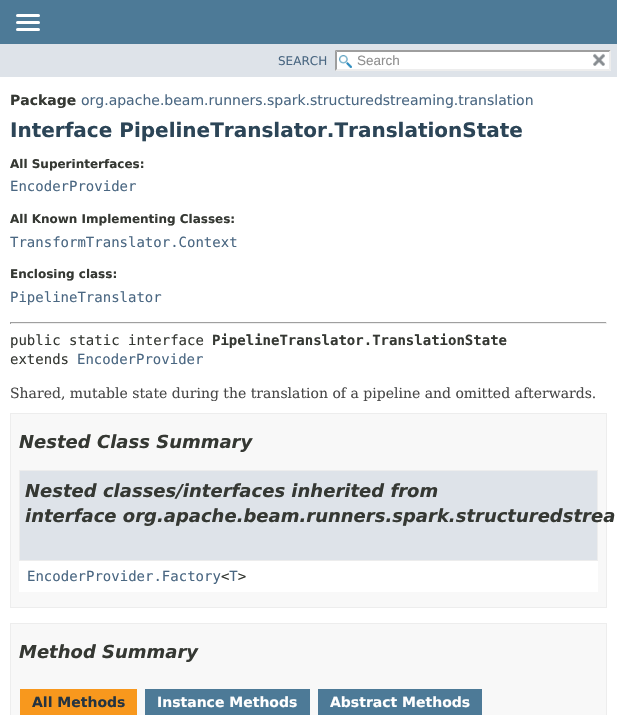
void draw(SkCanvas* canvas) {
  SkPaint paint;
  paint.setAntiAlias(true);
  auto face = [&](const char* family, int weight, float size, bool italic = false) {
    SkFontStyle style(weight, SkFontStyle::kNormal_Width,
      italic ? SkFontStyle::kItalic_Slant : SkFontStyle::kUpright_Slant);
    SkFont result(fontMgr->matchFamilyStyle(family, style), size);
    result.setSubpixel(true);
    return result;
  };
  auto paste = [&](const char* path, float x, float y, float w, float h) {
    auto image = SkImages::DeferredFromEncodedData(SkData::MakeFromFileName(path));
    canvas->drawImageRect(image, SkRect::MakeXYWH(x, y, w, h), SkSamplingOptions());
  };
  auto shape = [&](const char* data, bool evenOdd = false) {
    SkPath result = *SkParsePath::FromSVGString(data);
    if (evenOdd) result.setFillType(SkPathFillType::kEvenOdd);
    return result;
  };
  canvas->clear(0xffffffff);
  paint.setColor(0xff4d7a97);
  canvas->drawRect(SkRect::MakeXYWH(0, 0, 617, 44), paint);
  paint.setColor(0xffffffff);
  canvas->drawRoundRect(SkRect::MakeXYWH(16, 14, 24, 3), 1.5f, 1.5f, paint);
  canvas->drawRoundRect(SkRect::MakeXYWH(16, 21, 24, 3), 1.5f, 1.5f, paint);
  canvas->drawRoundRect(SkRect::MakeXYWH(16, 28, 24, 3), 1.5f, 1.5f, paint);
  paint.setColor(0xffdee3e9);
  canvas->drawRect(SkRect::MakeXYWH(0, 44, 617, 33), paint);
  paint.setColor(0xffffffff);
  canvas->drawRect(SkRect::MakeXYWH(335, 50, 276, 21), paint);
  paste("img/1.png", 339, 55, 13, 13);
  paint.setColor(0xff9e9e9e);
  canvas->drawPath(shape("M335 50H611L609 52H337Z"), paint);
  paint.setColor(0xffededed);
  canvas->drawPath(shape("M611 50V71L609 69V52Z"), paint);
  canvas->drawPath(shape("M611 71H335L337 69H609Z"), paint);
  paint.setColor(0xff9e9e9e);
  canvas->drawPath(shape("M335 71V50L337 52V69Z"), paint);
  paste("img/2.png", 593, 53, 12, 13);
  {
    const struct { float x, y, w, h; SkColor color; } items[] = {
      {10, 322, 597, 1, 0xff9f9f9f},
      {606, 322, 1, 2, 0xffeeeeee},
      {10, 323, 597, 1, 0xffeeeeee},
      {10, 322, 1, 2, 0xff9f9f9f},
    };
    for (auto [x, y, w, h, color] : items) {
      paint.setColor(color);
      canvas->drawRect(SkRect::MakeXYWH(x, y, w, h), paint);
    }
  }
  paint.setColor(0xfff8f8f8);
  canvas->drawRect(SkRect::MakeXYWH(10.5f, 413.5f, 596, 194), paint);
  paint.setStroke(true);
  paint.setStrokeWidth(1);
  paint.setColor(0xffededed);
  canvas->drawRect(SkRect::MakeXYWH(10.5f, 413.5f, 596, 194), paint);
  paint.setStroke(false);
  paint.setColor(0xffffffff);
  canvas->drawRect(SkRect::MakeXYWH(19, 561, 579, 31), paint);
  paint.setColor(0xffdee3e9);
  canvas->drawRect(SkRect::MakeXYWH(19.5f, 470.5f, 578, 90), paint);
  paint.setStroke(true);
  paint.setColor(0xffededed);
  canvas->drawRect(SkRect::MakeXYWH(19.5f, 470.5f, 578, 90), paint);
  paint.setStroke(false);
  paint.setColor(0xfff8f8f8);
  canvas->drawRect(SkRect::MakeXYWH(10.5f, 623.5f, 596, 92), paint);
  paint.setStroke(true);
  paint.setColor(0xffededed);
  canvas->drawRect(SkRect::MakeXYWH(10.5f, 623.5f, 596, 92), paint);
  paint.setStroke(false);
  {
    const struct { float x, y, w, h; SkColor color; } items[] = {
      {20, 689, 117, 26, 0xfff8981d},
      {145, 689, 165, 26, 0xff4d7a97},
      {318, 689, 164, 26, 0xff4d7a97},
    };
    for (auto [x, y, w, h, color] : items) {
      paint.setColor(color);
      canvas->drawRect(SkRect::MakeXYWH(x, y, w, h), paint);
    }
  }
  auto f0 = face("DejaVu Sans", 400, 12);
  paint.setColor(0xff4a6782);
  canvas->drawString("SEARCH", 278, 65, f0, paint);
  auto f1 = face("Liberation Sans", 400, 13.5f);
  paint.setColor(0xff909090);
  canvas->drawString("Search", 357, 65, f1, paint);
  auto f2 = face("DejaVu Sans", 700, 14);
  paint.setColor(0xff353833);
  canvas->drawString("Package", 10, 105, f2, paint);
  auto f3 = face("DejaVu Sans", 400, 14);
  paint.setColor(0xff4a6782);
  canvas->drawString("org.apache.beam.runners.spark.structuredstreaming.translation", 81, 105, f3, paint);
  auto f4 = face("DejaVu Sans", 700, 20);
  paint.setColor(0xff2c4557);
  canvas->drawString("Interface PipelineTranslator.TranslationState", 10, 137, f4, paint);
  auto f5 = face("DejaVu Sans", 700, 12);
  paint.setColor(0xff353833);
  canvas->drawString("All Superinterfaces:", 10, 168, f5, paint);
  auto f6 = face("DejaVu Sans Mono", 400, 14);
  paint.setColor(0xff4a6782);
  canvas->drawString("EncoderProvider", 10, 191, f6, paint);
  paint.setColor(0xff353833);
  canvas->drawString("All Known Implementing Classes:", 10, 223, f5, paint);
  paint.setColor(0xff4a6782);
  canvas->drawString("TransformTranslator.Context", 10, 247, f6, paint);
  paint.setColor(0xff353833);
  canvas->drawString("Enclosing class:", 10, 278, f5, paint);
  paint.setColor(0xff4a6782);
  canvas->drawString("PipelineTranslator", 10, 302, f6, paint);
  paint.setColor(0xff353833);
  canvas->drawString("public static interface", 10, 345, f6, paint);
  auto f7 = face("DejaVu Sans Mono", 700, 14);
  canvas->drawString("PipelineTranslator.TranslationState", 212, 345, f7, paint);
  canvas->drawString("extends", 10, 364, f6, paint);
  paint.setColor(0xff4a6782);
  canvas->drawString("EncoderProvider", 77, 364, f6, paint);
  auto f8 = face("DejaVu Serif", 400, 14);
  paint.setColor(0xff474747);
  canvas->drawString("Shared, mutable state during the translation of a pipeline and omitted afterwards.", 10, 398, f8, paint);
  auto f9 = face("DejaVu Sans", 700, 18, true);
  paint.setColor(0xff353833);
  {
    const struct { const char* s; float x, y; } items[] = {
      {"Nested Class Summary", 19, 448},
      {"Nested classes/interfaces inherited from", 25, 497},
      {"interface org.apache.beam.runners.spark.structuredstrea", 25, 522},
    };
    for (auto [s, x, y] : items) {
      canvas->drawString(s, x, y, f9, paint);
    }
  }
  paint.setColor(0xff4a6782);
  canvas->drawString("EncoderProvider.Factory T", 27, 581, f6, paint);
  paint.setColor(0xff353833);
  canvas->drawString("< >", 221, 581, f6, paint);
  canvas->drawString("Method Summary", 19, 658, f9, paint);
  paint.setColor(0xff253441);
  canvas->drawString("All Methods", 32, 707, f2, paint);
  paint.setColor(0xffffffff);
  canvas->drawString("Instance Methods", 157, 707, f2, paint);
  canvas->drawString("Abstract Methods", 330, 707, f2, paint);
}
